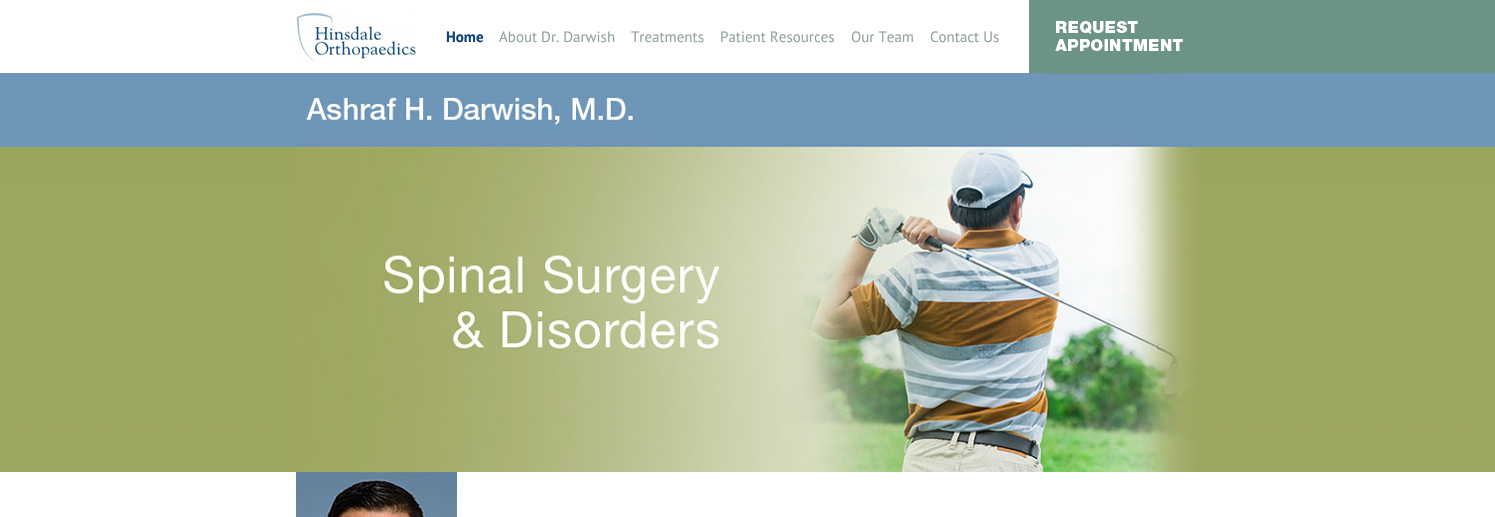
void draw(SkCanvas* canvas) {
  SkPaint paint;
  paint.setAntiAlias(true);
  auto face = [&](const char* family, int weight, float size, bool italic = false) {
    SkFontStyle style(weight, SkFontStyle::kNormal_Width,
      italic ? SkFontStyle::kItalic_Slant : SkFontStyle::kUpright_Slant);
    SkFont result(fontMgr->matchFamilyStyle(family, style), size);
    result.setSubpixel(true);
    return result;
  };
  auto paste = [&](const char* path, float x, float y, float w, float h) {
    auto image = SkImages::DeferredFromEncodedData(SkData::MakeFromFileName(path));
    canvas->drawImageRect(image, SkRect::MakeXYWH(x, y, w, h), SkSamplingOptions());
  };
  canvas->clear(0xffffffff);
  paste("img/1.png", 296, 12, 120, 50);
  paste("img/2.png", 1029, 0, 170, 73);
  paint.setColor(0xff6b9386);
  canvas->drawRect(SkRect::MakeXYWH(1199, 0, 296, 73), paint);
  paste("img/3.png", 0, 73, 296, 399);
  paste("img/4.png", 296, 73, 903, 399);
  paste("img/3.png", 1199, 73, 296, 399);
  paste("img/5.png", 296, 472, 161, 45);
  auto f0 = face("PT Sans", 700, 15);
  paint.setColor(0xff0d4178);
  canvas->drawString("Home", 446, 42, f0, paint);
  auto f1 = face("PT Sans", 400, 15);
  paint.setColor(0xff91a59f);
  {
    const struct { const char* s; float x, y; } items[] = {
      {"About Dr. Darwish", 499, 42},
      {"Treatments", 631, 42},
      {"Patient Resources", 720, 42},
      {"Our Team", 851, 42},
      {"Contact Us", 930, 42},
    };
    for (auto [s, x, y] : items) {
      canvas->drawString(s, x, y, f1, paint);
    }
  }
}
